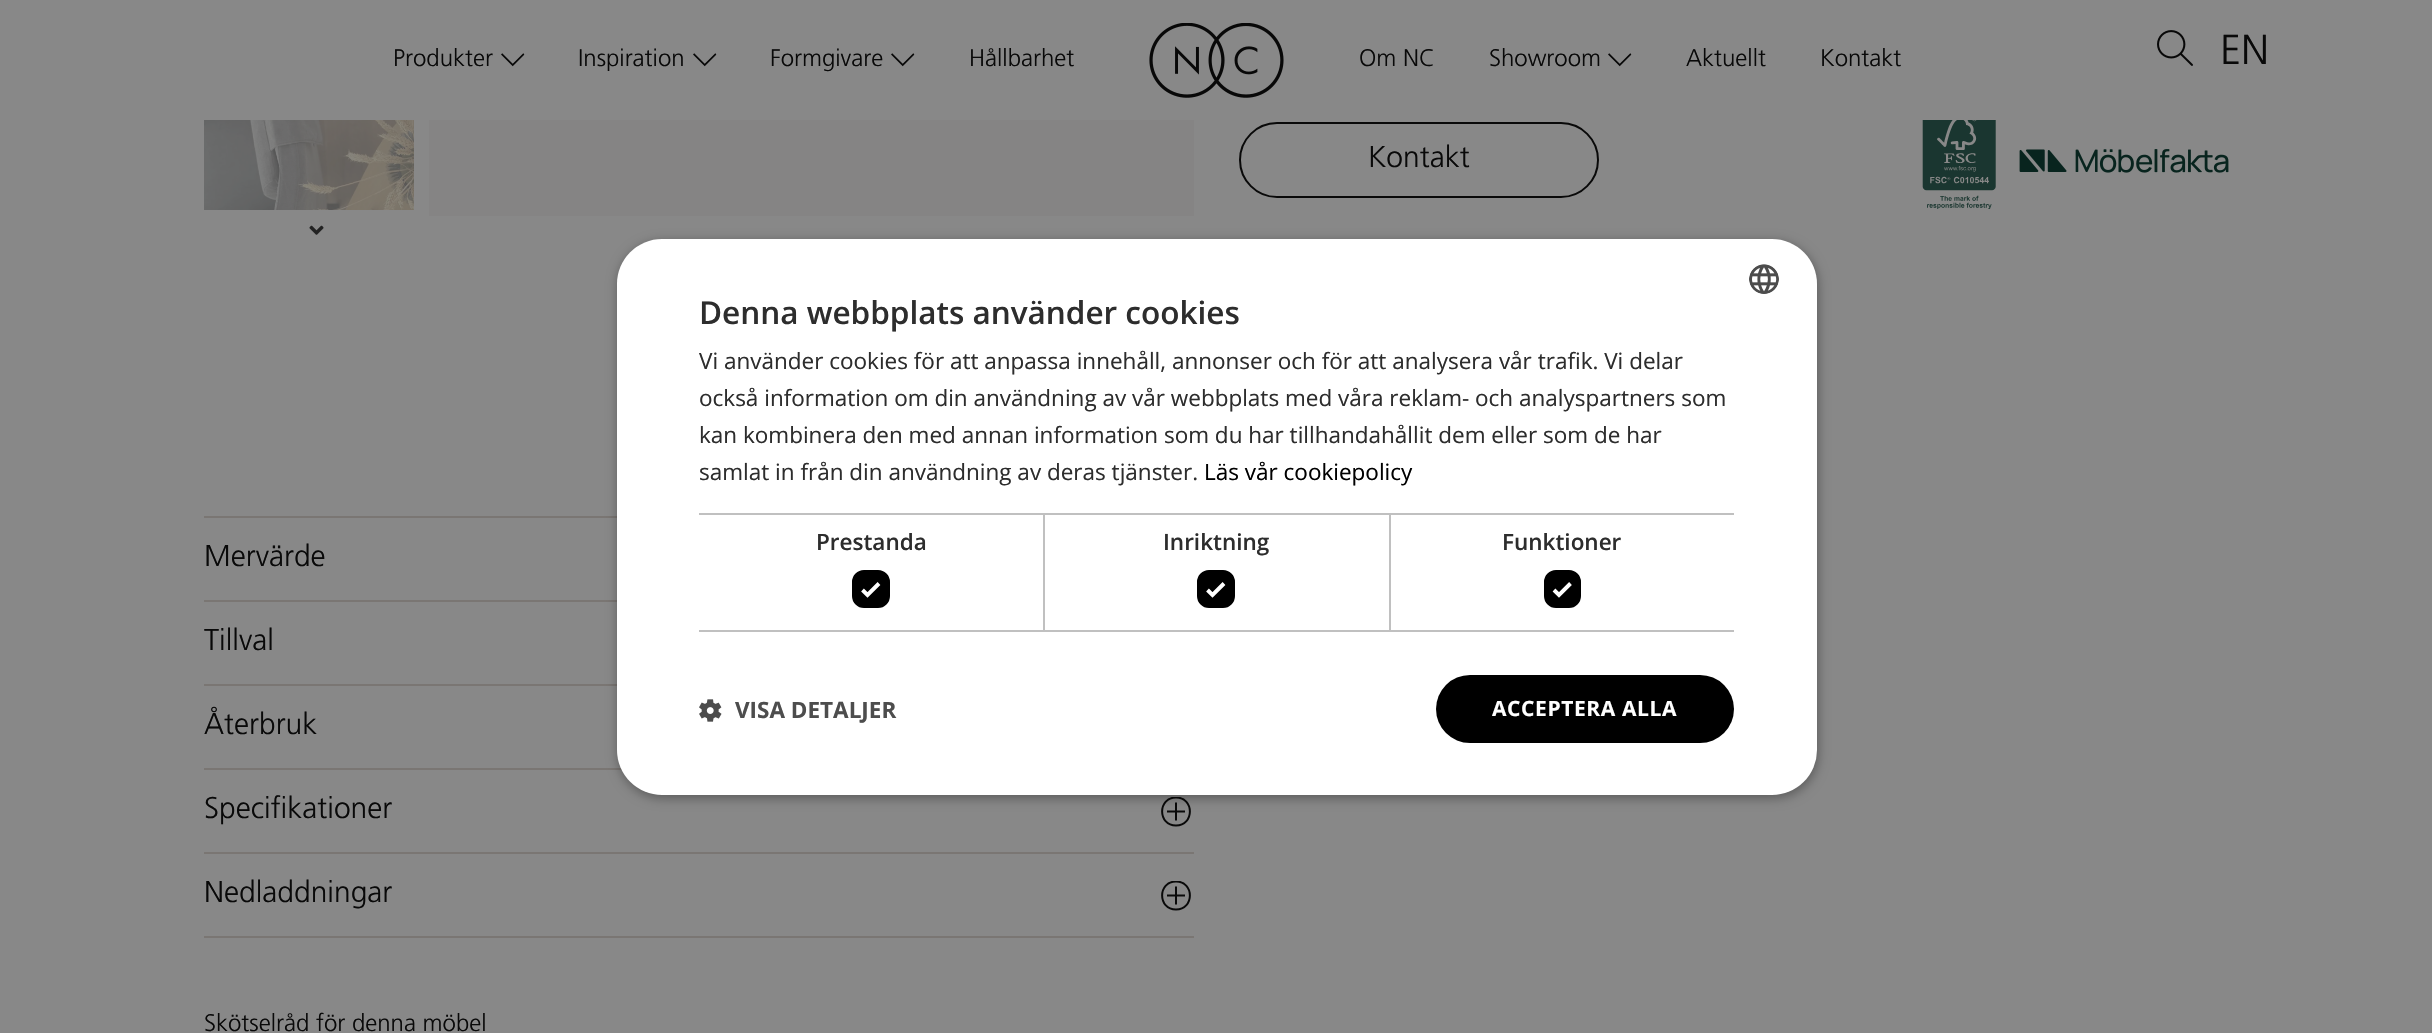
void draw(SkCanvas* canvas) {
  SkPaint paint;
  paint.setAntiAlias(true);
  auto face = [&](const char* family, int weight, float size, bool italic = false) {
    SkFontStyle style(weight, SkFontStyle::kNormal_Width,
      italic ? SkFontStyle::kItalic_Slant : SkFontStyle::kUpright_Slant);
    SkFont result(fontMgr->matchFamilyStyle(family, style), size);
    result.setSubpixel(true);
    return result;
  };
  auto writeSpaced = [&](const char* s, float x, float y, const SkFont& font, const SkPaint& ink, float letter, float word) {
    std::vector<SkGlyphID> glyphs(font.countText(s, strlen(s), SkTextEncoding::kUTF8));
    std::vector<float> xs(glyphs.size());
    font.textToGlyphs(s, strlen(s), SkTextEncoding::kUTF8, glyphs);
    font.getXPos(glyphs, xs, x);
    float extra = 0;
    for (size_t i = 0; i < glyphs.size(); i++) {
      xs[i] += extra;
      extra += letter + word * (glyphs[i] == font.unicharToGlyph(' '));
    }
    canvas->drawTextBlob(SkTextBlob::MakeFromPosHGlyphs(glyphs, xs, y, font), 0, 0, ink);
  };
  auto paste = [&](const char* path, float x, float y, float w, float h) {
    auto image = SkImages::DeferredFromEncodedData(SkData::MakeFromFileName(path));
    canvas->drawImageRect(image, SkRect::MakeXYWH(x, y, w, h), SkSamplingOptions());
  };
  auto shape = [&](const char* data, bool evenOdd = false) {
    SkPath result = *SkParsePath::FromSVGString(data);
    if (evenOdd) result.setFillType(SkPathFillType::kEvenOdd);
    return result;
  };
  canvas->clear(0xff888888);
  paste("img/1.png", 501, 53, 24, 14);
  paste("img/1.png", 693, 53, 24, 14);
  paste("img/1.png", 891, 53, 24, 14);
  paste("img/2.png", 1149, 23, 135, 75);
  paste("img/1.png", 1608, 53, 24, 14);
  paste("img/3.png", 2157, 30, 36, 36);
  paint.setStroke(true);
  paint.setStrokeWidth(2);
  paint.setColor(0xff090909);
  canvas->drawRoundRect(SkRect::MakeXYWH(1240, 123, 358, 74), 37, 37, paint);
  paste("img/4.png", 1922, 120, 74, 89);
  paste("img/5.png", 2019, 149, 210, 24);
  paste("img/6.png", 204, 120, 210, 90);
  paste("img/7.png", 309, 225, 15, 10);
  paint.setStroke(false);
  {
    const struct { float x, y, w, h; SkColor color; } items[] = {
      {429, 120, 765, 96, 0xff858484},
      {204, 936, 990, 2, 0xff7a7673},
      {204, 516, 413, 2, 0xff7a7673},
      {204, 600, 413, 2, 0xff7a7673},
      {204, 684, 413, 2, 0xff7a7673},
      {204, 768, 418, 2, 0xff7a7673},
    };
    for (auto [x, y, w, h, color] : items) {
      paint.setColor(color);
      canvas->drawRect(SkRect::MakeXYWH(x, y, w, h), paint);
    }
  }
  canvas->save();
  canvas->clipRect(SkRect::MakeXYWH(1161, 797, 30, 30));
  paint.setStroke(true);
  paint.setColor(0xff090909);
  canvas->drawPath(shape("M1176 797.5C1194.5 797.5 1194.5 825.5 1176 825.5C1157.5 825.5 1157.5 797.5 1176 797.5ZM1176 802.5V820.5M1185 811.5H1167"), paint);
  canvas->restore();
  paint.setStroke(false);
  paint.setColor(0xff7a7673);
  canvas->drawRect(SkRect::MakeXYWH(204, 852, 990, 2), paint);
  canvas->save();
  canvas->clipRect(SkRect::MakeXYWH(1161, 881, 30, 30));
  paint.setStroke(true);
  paint.setColor(0xff090909);
  canvas->drawPath(shape("M1176 881.5C1194.5 881.5 1194.5 909.5 1176 909.5C1157.5 909.5 1157.5 881.5 1176 881.5ZM1176 886.5V904.5M1185 895.5H1167"), paint);
  canvas->restore();
  paint.setStroke(false);
  paint.setColor(0x59000000);
  paint.setMaskFilter(SkMaskFilter::MakeBlur(kNormal_SkBlurStyle, 6));
  canvas->drawRoundRect(SkRect::MakeXYWH(618, 242, 1200, 556), 45, 45, paint);
  paint.setMaskFilter(nullptr);
  paint.setColor(0xffffffff);
  canvas->drawRoundRect(SkRect::MakeXYWH(617, 239, 1200, 556), 45, 45, paint);
  paste("img/8.png", 1749, 264, 30, 30);
  {
    const struct { float x, y, w, h; SkColor color; } items[] = {
      {699, 513, 345, 2, 0xffc0c0c0},
      {1043, 513, 2, 119, 0xffc0c0c0},
      {699, 630, 345, 2, 0xffc0c0c0},
    };
    for (auto [x, y, w, h, color] : items) {
      paint.setColor(color);
      canvas->drawRect(SkRect::MakeXYWH(x, y, w, h), paint);
    }
  }
  paint.setColor(0xff000000);
  canvas->drawRoundRect(SkRect::MakeXYWH(853.5f, 571.5f, 35, 35), 10.5f, 10.5f, paint);
  paint.setStroke(true);
  paint.setStrokeWidth(3);
  canvas->drawRoundRect(SkRect::MakeXYWH(853.5f, 571.5f, 35, 35), 10.5f, 10.5f, paint);
  paint.setStrokeWidth(3.9f);
  paint.setColor(0xffffffff);
  canvas->drawPath(shape("M862.5 590L867.5 595L879 583.5"), paint);
  paint.setStroke(false);
  {
    const struct { float x, y, w, h; SkColor color; } items[] = {
      {1044, 513, 690, 2, 0xffc0c0c0},
      {1389, 513, 2, 119, 0xffc0c0c0},
      {1044, 630, 690, 2, 0xffc0c0c0},
    };
    for (auto [x, y, w, h, color] : items) {
      paint.setColor(color);
      canvas->drawRect(SkRect::MakeXYWH(x, y, w, h), paint);
    }
  }
  paint.setColor(0xff000000);
  canvas->drawRoundRect(SkRect::MakeXYWH(1198.5f, 571.5f, 35, 35), 10.5f, 10.5f, paint);
  paint.setStroke(true);
  paint.setStrokeWidth(3);
  canvas->drawRoundRect(SkRect::MakeXYWH(1198.5f, 571.5f, 35, 35), 10.5f, 10.5f, paint);
  paint.setStrokeWidth(3.9f);
  paint.setColor(0xffffffff);
  canvas->drawPath(shape("M1207.5 590L1212.5 595L1224 583.5"), paint);
  paint.setStroke(false);
  paint.setColor(0xff000000);
  canvas->drawRoundRect(SkRect::MakeXYWH(1545.5f, 571.5f, 34, 35), 10.5f, 10.5f, paint);
  paint.setStroke(true);
  paint.setStrokeWidth(3);
  canvas->drawRoundRect(SkRect::MakeXYWH(1545.5f, 571.5f, 34, 35), 10.5f, 10.5f, paint);
  paint.setStrokeWidth(3.9f);
  paint.setColor(0xffffffff);
  canvas->drawPath(shape("M1554 590L1559 595L1570.5 583.5"), paint);
  paste("img/9.png", 699, 699, 23, 23);
  paint.setStroke(false);
  paint.setColor(0xff000000);
  canvas->drawRoundRect(SkRect::MakeXYWH(1436, 675, 298, 68), 34, 34, paint);
  auto f0 = face("Frutiger", 300, 24);
  paint.setColor(0xff090909);
  {
    const struct { const char* s; float x, y; } items[] = {
      {"Produkter", 393, 66},
      {"Inspiration", 578, 66},
      {"Formgivare", 770, 66},
      {"Hållbarhet", 969, 66},
      {"Om NC", 1359, 66},
      {"Showroom", 1489, 66},
      {"Aktuellt", 1686, 66},
      {"Kontakt", 1820, 66},
    };
    for (auto [s, x, y] : items) {
      canvas->drawString(s, x, y, f0, paint);
    }
  }
  auto f1 = face("Frutiger", 300, 42);
  canvas->drawString("EN", 2220, 64, f1, paint);
  auto f2 = face("Frutiger", 300, 30);
  {
    const struct { const char* s; float x, y; } items[] = {
      {"Kontakt", 1368, 167},
      {"Mervärde", 204, 566},
      {"Tillval", 204, 650},
      {"Återbruk", 204, 734},
      {"Specifikationer", 204, 818},
      {"Nedladdningar", 204, 902},
    };
    for (auto [s, x, y] : items) {
      canvas->drawString(s, x, y, f2, paint);
    }
  }
  canvas->drawString("Skötselråd för denna möbel", 204, 1031, f0, paint);
  auto f3 = face("Open Sans", 600, 31.5f);
  paint.setColor(0xff2d2d2d);
  canvas->drawString("Denna webbplats använder cookies", 699, 324, f3, paint);
  auto f4 = face("Open Sans", 400, 22.5f);
  {
    const struct { const char* s; float x, y; } items[] = {
      {"Vi använder cookies för att anpassa innehåll, annonser och för att analysera vår trafik. Vi delar", 699, 369},
      {"också information om din användning av vår webbplats med våra reklam- och analyspartners som", 699, 406},
      {"kan kombinera den med annan information som du har tillhandahållit dem eller som de har", 699, 443},
      {"samlat in från din användning av deras tjänster.", 699, 480},
    };
    for (auto [s, x, y] : items) {
      canvas->drawString(s, x, y, f4, paint);
    }
  }
  paint.setColor(0xff000000);
  canvas->drawString("Läs vår cookiepolicy", 1204, 480, f4, paint);
  auto f5 = face("Open Sans", 600, 22.5f);
  paint.setColor(0xff2d2d2d);
  {
    const struct { const char* s; float x, y; } items[] = {
      {"Prestanda", 816, 550},
      {"Inriktning", 1163, 550},
      {"Funktioner", 1502, 550},
    };
    for (auto [s, x, y] : items) {
      canvas->drawString(s, x, y, f5, paint);
    }
  }
  auto f6 = face("Open Sans", 700, 22.5f);
  paint.setColor(0xff4d4d4d);
  canvas->drawString("VISA DETALJER", 735, 718, f6, paint);
  auto f7 = face("Open Sans", 700, 21);
  paint.setColor(0xffffffff);
  writeSpaced("ACCEPTERA ALLA", 1492, 716, f7, paint, 0.6f, 0);
}
